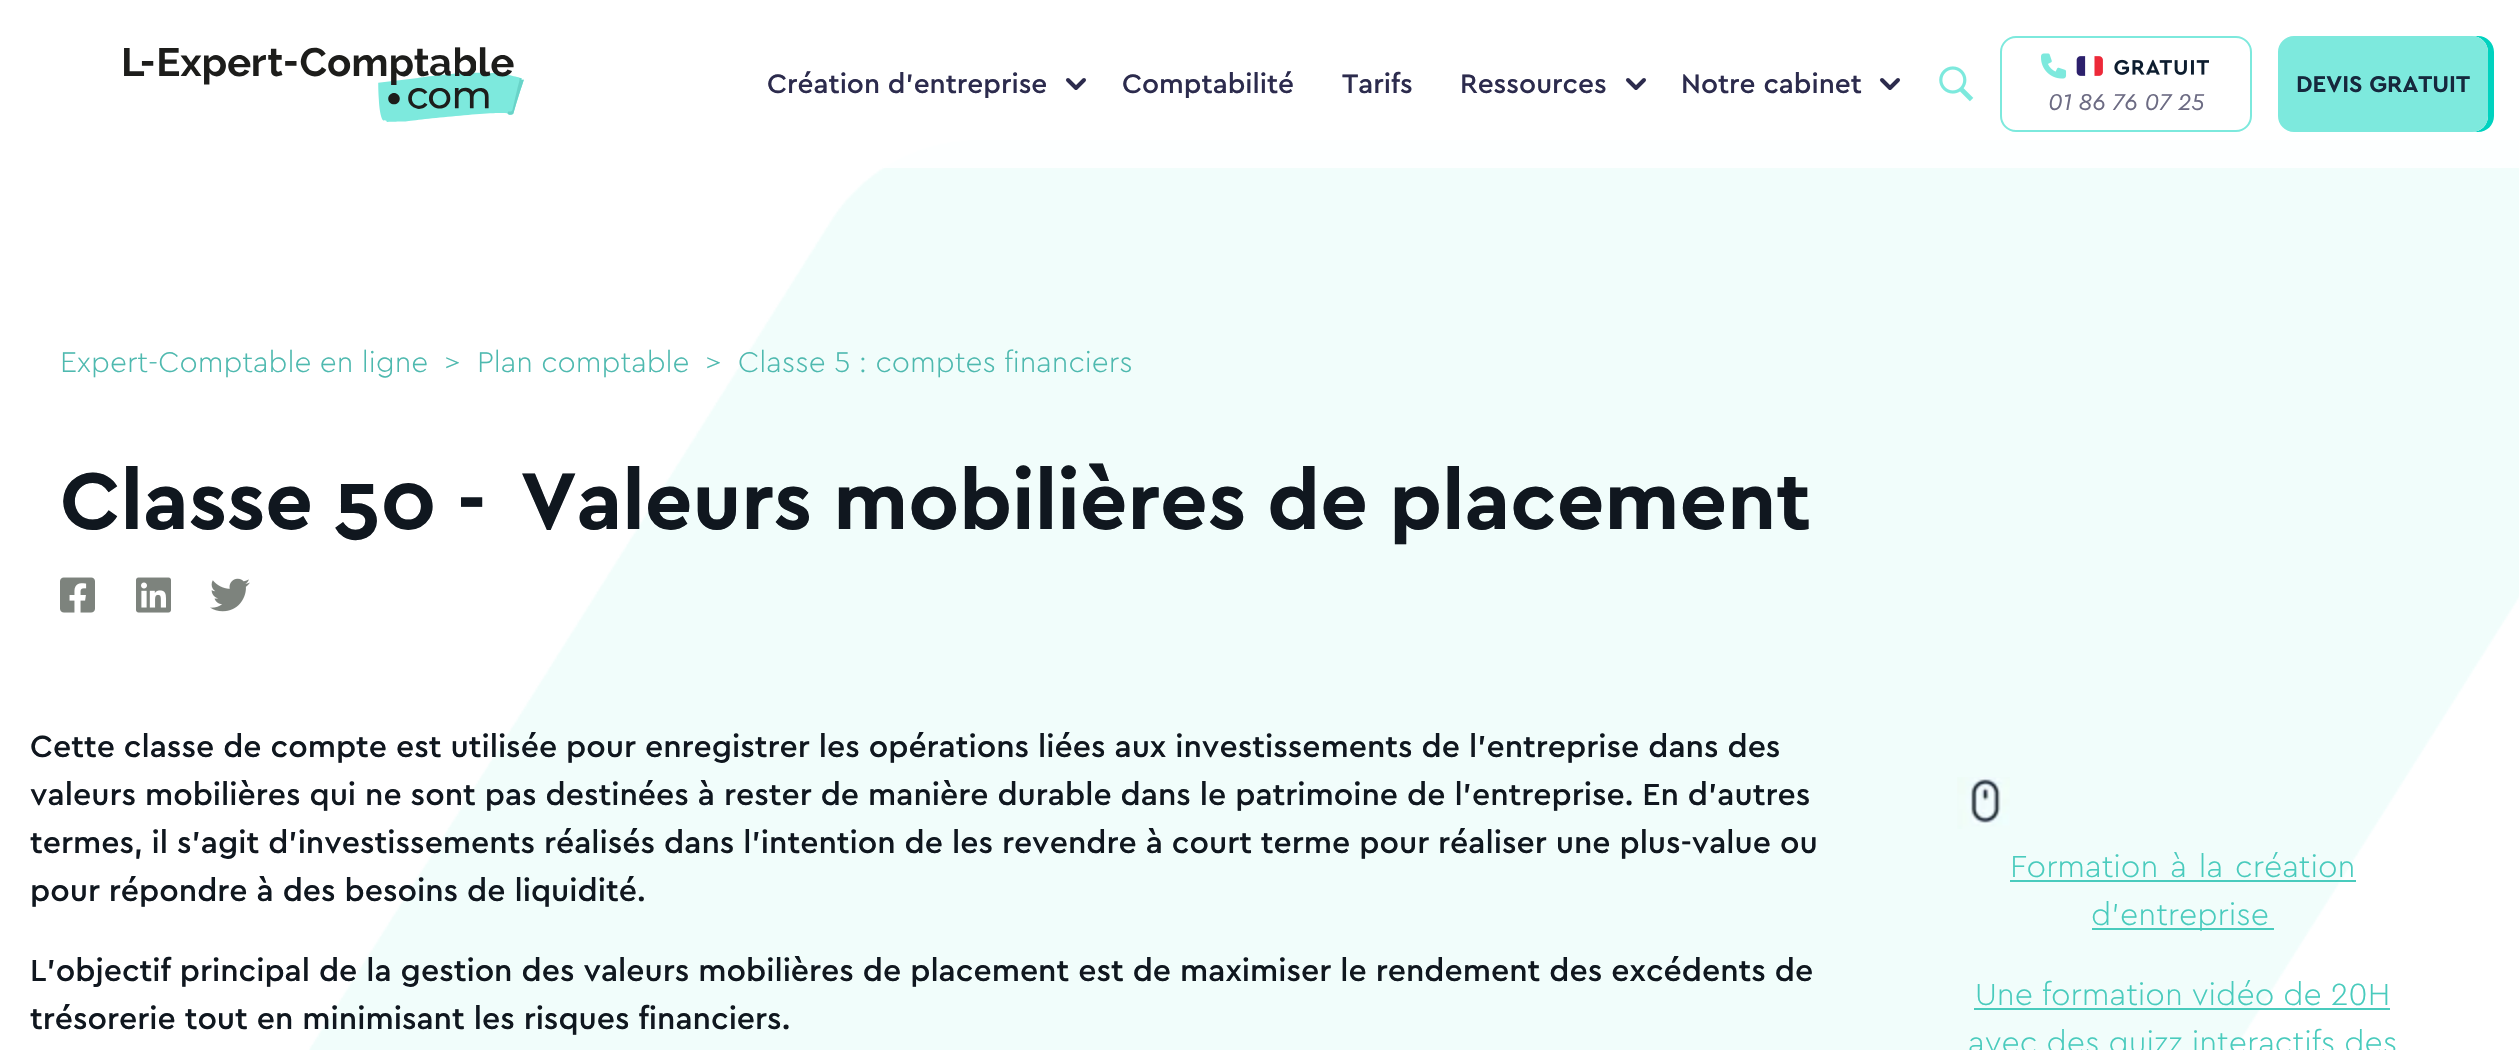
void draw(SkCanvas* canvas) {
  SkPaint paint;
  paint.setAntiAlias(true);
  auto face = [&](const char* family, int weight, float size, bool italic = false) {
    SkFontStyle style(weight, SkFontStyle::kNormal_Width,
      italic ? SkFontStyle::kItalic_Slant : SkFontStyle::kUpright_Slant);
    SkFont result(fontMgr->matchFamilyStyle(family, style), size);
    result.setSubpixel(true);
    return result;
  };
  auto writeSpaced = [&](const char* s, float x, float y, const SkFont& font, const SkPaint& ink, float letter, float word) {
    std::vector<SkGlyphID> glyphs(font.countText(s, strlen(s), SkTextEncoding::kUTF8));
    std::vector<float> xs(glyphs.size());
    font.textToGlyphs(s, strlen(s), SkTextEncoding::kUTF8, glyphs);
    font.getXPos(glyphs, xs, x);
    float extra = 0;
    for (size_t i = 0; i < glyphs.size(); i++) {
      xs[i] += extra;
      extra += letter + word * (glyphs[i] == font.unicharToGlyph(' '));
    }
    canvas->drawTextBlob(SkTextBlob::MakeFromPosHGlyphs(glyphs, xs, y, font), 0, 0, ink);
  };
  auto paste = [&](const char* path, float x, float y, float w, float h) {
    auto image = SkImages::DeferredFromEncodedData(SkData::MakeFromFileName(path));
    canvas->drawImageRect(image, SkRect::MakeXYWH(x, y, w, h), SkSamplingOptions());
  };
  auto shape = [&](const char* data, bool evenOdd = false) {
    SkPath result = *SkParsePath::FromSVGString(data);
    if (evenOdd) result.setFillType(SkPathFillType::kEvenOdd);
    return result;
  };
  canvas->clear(0xffffffff);
  paste("img/4.png", 309, 140, 2210, 910);
  paint.setColor(0xccffffff);
  canvas->drawRect(SkRect::MakeXYWH(883, 140, 1636, 28), paint);
  paste("img/1.png", 124, 47, 400, 75);
  paint.setStroke(true);
  paint.setStrokeWidth(4);
  paint.setStrokeCap(SkPaint::kRound_Cap);
  paint.setStrokeJoin(SkPaint::kRound_Join);
  paint.setColor(0xff2c2b4d);
  canvas->drawPath(shape("M1084 80L1076 88L1068 80"), paint);
  canvas->drawPath(shape("M1644 80L1636 88L1628 80"), paint);
  canvas->drawPath(shape("M1898 80L1890 88L1882 80"), paint);
  paste("img/2.png", 1939, 66, 35, 36);
  paint.setStroke(false);
  paint.setColor(0xff00d2bf);
  canvas->drawPath(shape("M2472 132H2478C2487 132 2494 125 2494 116V52C2494 43 2487 36 2478 36H2472C2481 36 2488 43 2488 52V116C2488 125 2481 132 2472 132Z"), paint);
  paint.setColor(0xff7de9dd);
  canvas->drawRoundRect(SkRect::MakeXYWH(2279, 37, 208, 94), 15, 15, paint);
  paint.setStroke(true);
  paint.setStrokeWidth(2);
  paint.setStrokeCap(SkPaint::kButt_Cap);
  paint.setStrokeJoin(SkPaint::kMiter_Join);
  canvas->drawRoundRect(SkRect::MakeXYWH(2279, 37, 208, 94), 15, 15, paint);
  canvas->drawRoundRect(SkRect::MakeXYWH(2001, 37, 250, 94), 15, 15, paint);
  paste("img/3.png", 2041, 53, 168, 26);
  paste("img/5.png", 60, 577, 35, 36);
  paste("img/6.png", 136, 577, 35, 36);
  paste("img/7.png", 210, 578, 40, 34);
  paste("img/8.png", 1957, 777, 53, 52);
  paint.setStroke(false);
  {
    const struct { float x, y, w, h; SkColor color; } items[] = {
      {2010, 880, 346, 2, 0xff49cbbd},
      {2092, 928, 182, 2, 0xff49cbbd},
      {1974, 1008, 416, 2, 0xff49cbbd},
    };
    for (auto [x, y, w, h, color] : items) {
      paint.setColor(color);
      canvas->drawRect(SkRect::MakeXYWH(x, y, w, h), paint);
    }
  }
  auto f0 = face("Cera", 500, 28);
  paint.setColor(0xff2c2b4d);
  {
    const struct { const char* s; float x, y; } items[] = {
      {"Création d'entreprise", 767, 93},
      {"Comptabilité", 1122, 93},
      {"Tarifs", 1342, 93},
      {"Ressources", 1460, 93},
      {"Notre cabinet", 1681, 93},
    };
    for (auto [s, x, y] : items) {
      canvas->drawString(s, x, y, f0, paint);
    }
  }
  auto f1 = face("Cera", 700, 24);
  paint.setColor(0xff16283d);
  canvas->drawString("DEVIS GRATUIT", 2296, 92, f1, paint);
  auto f2 = face("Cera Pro", 400, 24, true);
  paint.setColor(0xff6c6b83);
  canvas->drawString("01 86 76 07 25", 2048, 110, f2, paint);
  auto f3 = face("Cera Pro", 300, 29.75f);
  paint.setColor(0xff4eb9af);
  {
    const struct { const char* s; float x, y; } items[] = {
      {"Expert-Comptable en ligne", 60, 372},
      {">", 444, 372},
      {"Plan comptable", 477, 372},
      {">", 705, 372},
      {"Classe 5 : comptes financiers", 738, 372},
    };
    for (auto [s, x, y] : items) {
      canvas->drawString(s, x, y, f3, paint);
    }
  }
  auto f4 = face("Cera", 700, 84);
  paint.setColor(0xff10171f);
  writeSpaced("Classe 50 -", 60, 529, f4, paint, 0, -2.25f);
  writeSpaced("Valeurs mobilières de placement", 521, 529, f4, paint, 0, -2.25f);
  auto f5 = face("Cera", 500, 32);
  {
    const struct { const char* s; float x, y; } items[] = {
      {"Cette classe de compte est utilisée pour enregistrer les opérations liées aux investissements de l'entreprise dans des", 30, 757},
      {"valeurs mobilières qui ne sont pas destinées à rester de manière durable dans le patrimoine de l'entreprise. En d'autres", 30, 805},
      {"termes, il s'agit d'investissements réalisés dans l'intention de les revendre à court terme pour réaliser une plus-value ou", 30, 853},
      {"pour répondre à des besoins de liquidité.", 30, 901},
      {"L'objectif principal de la gestion des valeurs mobilières de placement est de maximiser le rendement des excédents de", 30, 981},
      {"trésorerie tout en minimisant les risques financiers.", 30, 1029},
    };
    for (auto [s, x, y] : items) {
      canvas->drawString(s, x, y, f5, paint);
    }
  }
  auto f6 = face("Cera Pro", 300, 32);
  paint.setColor(0xff49cbbd);
  writeSpaced("Formation à la création", 2010, 877, f6, paint, 0, 3);
  {
    const struct { const char* s; float x, y; } items[] = {
      {"d'entreprise", 2091, 925},
      {"Une formation vidéo de 20H", 1975, 1005},
      {"avec des quizz interactifs des", 1968, 1053},
    };
    for (auto [s, x, y] : items) {
      canvas->drawString(s, x, y, f6, paint);
    }
  }
}
